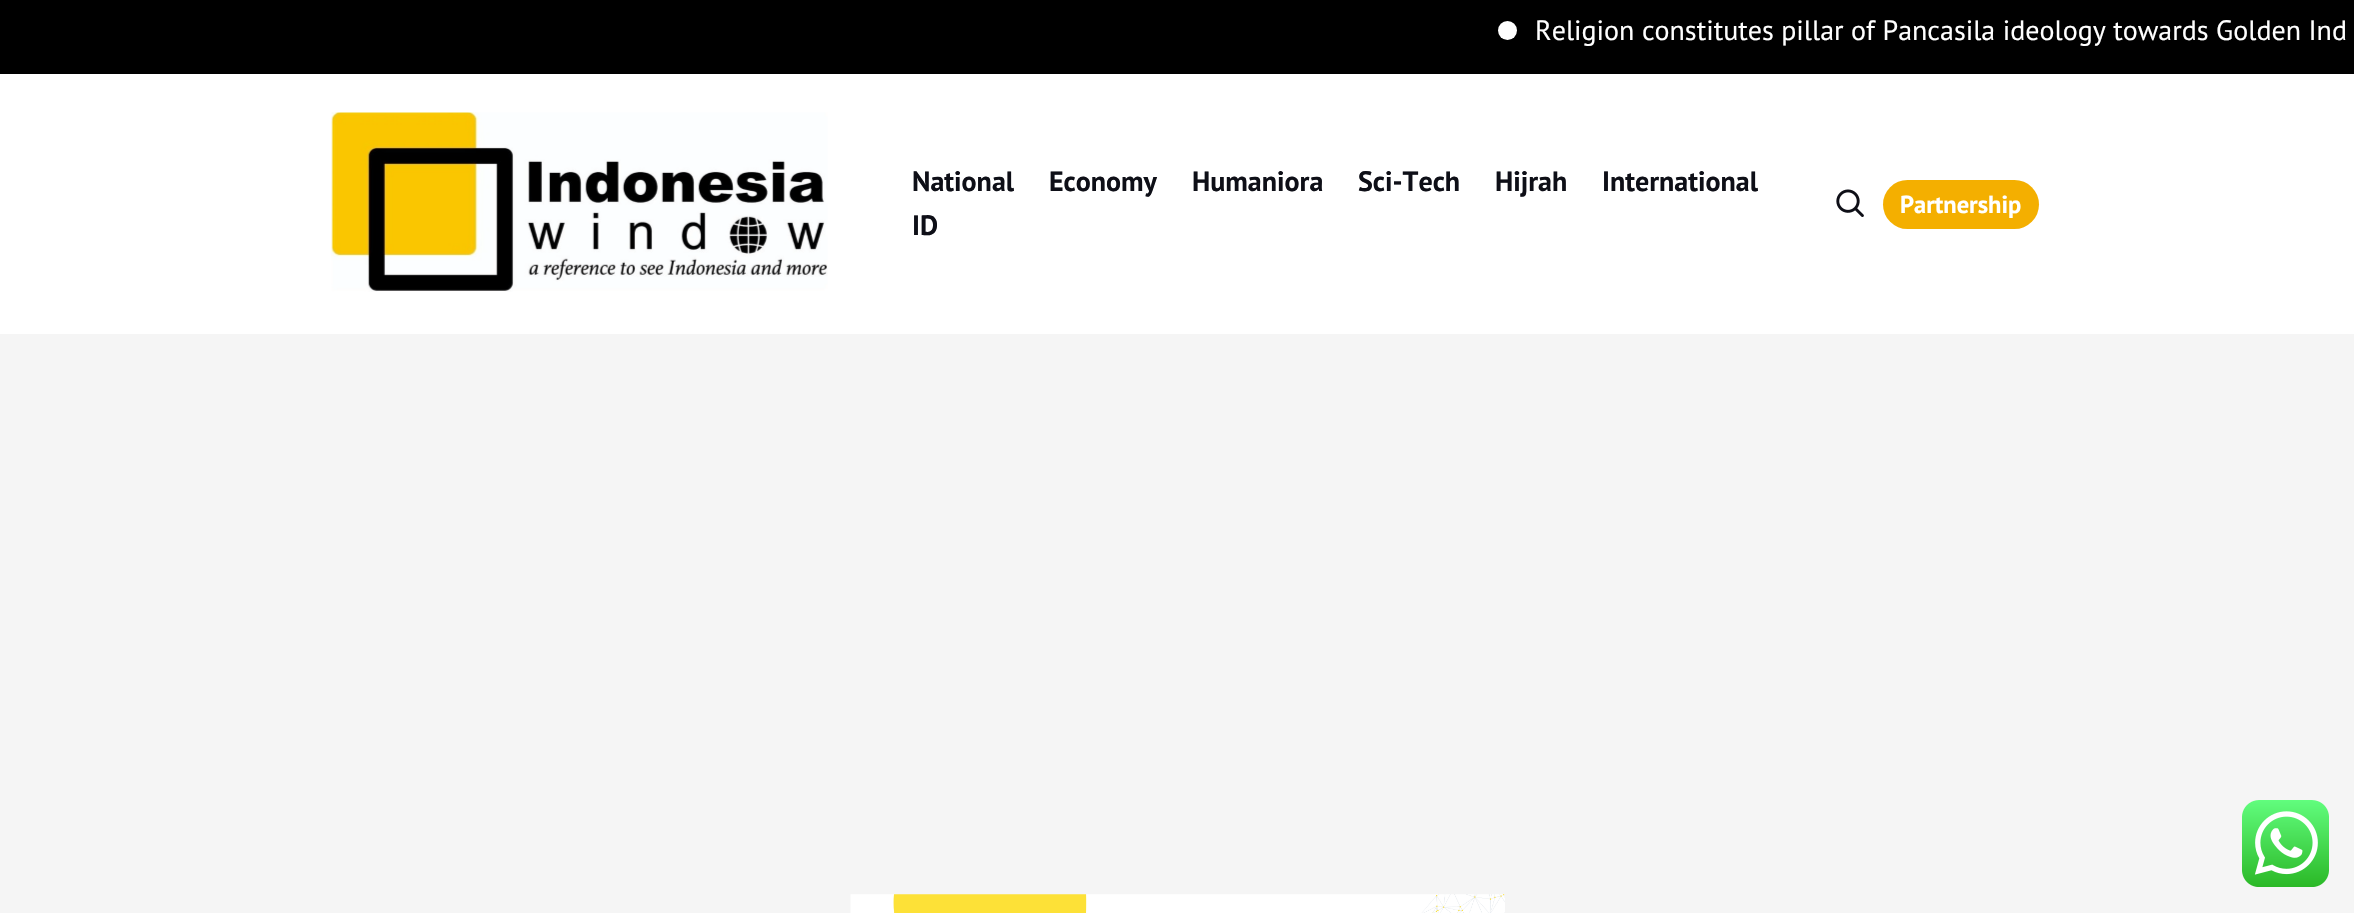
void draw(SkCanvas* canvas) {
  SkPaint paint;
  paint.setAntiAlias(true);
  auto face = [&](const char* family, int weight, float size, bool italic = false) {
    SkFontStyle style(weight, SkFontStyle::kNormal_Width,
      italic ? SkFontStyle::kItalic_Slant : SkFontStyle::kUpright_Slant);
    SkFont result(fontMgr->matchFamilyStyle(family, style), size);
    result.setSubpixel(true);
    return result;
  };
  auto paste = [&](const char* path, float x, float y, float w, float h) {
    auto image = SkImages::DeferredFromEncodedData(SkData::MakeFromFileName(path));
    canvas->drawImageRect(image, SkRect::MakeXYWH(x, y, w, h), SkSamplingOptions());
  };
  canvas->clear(0xfff5f5f5);
  paint.setColor(0xff000000);
  canvas->drawRect(SkRect::MakeXYWH(0, 0, 2354, 74), paint);
  paint.setColor(0xffffffff);
  canvas->drawCircle(1507.5f, 30.5f, 9.5f, paint);
  canvas->drawRect(SkRect::MakeXYWH(0, 74, 2354, 260), paint);
  paste("img/1.png", 331, 112, 497, 180);
  paste("img/2.png", 1836, 189, 28, 28);
  paint.setColor(0xfff4af00);
  canvas->drawRoundRect(SkRect::MakeXYWH(1883, 180, 156, 49), 24.5f, 24.5f, paint);
  paste("img/3.png", 2242, 800, 87, 87);
  paste("img/4.png", 850, 894, 655, 19);
  auto f0 = face("PT Sans", 400, 28);
  paint.setColor(0xffffffff);
  canvas->drawString("Religion constitutes pillar of Pancasila ideology towards Golden Ind", 1535, 40, f0, paint);
  auto f1 = face("PT Sans", 700, 28);
  paint.setColor(0xff0e0f17);
  {
    const struct { const char* s; float x, y; } items[] = {
      {"National", 912, 191},
      {"Economy", 1049, 191},
      {"Humaniora", 1192, 191},
      {"Sci-Tech", 1358, 191},
      {"Hijrah", 1495, 191},
      {"International", 1602, 191},
      {"ID", 912, 235},
    };
    for (auto [s, x, y] : items) {
      canvas->drawString(s, x, y, f1, paint);
    }
  }
  auto f2 = face("PT Sans", 700, 24.5f);
  paint.setColor(0xffffffff);
  canvas->drawString("Partnership", 1900, 213, f2, paint);
}
